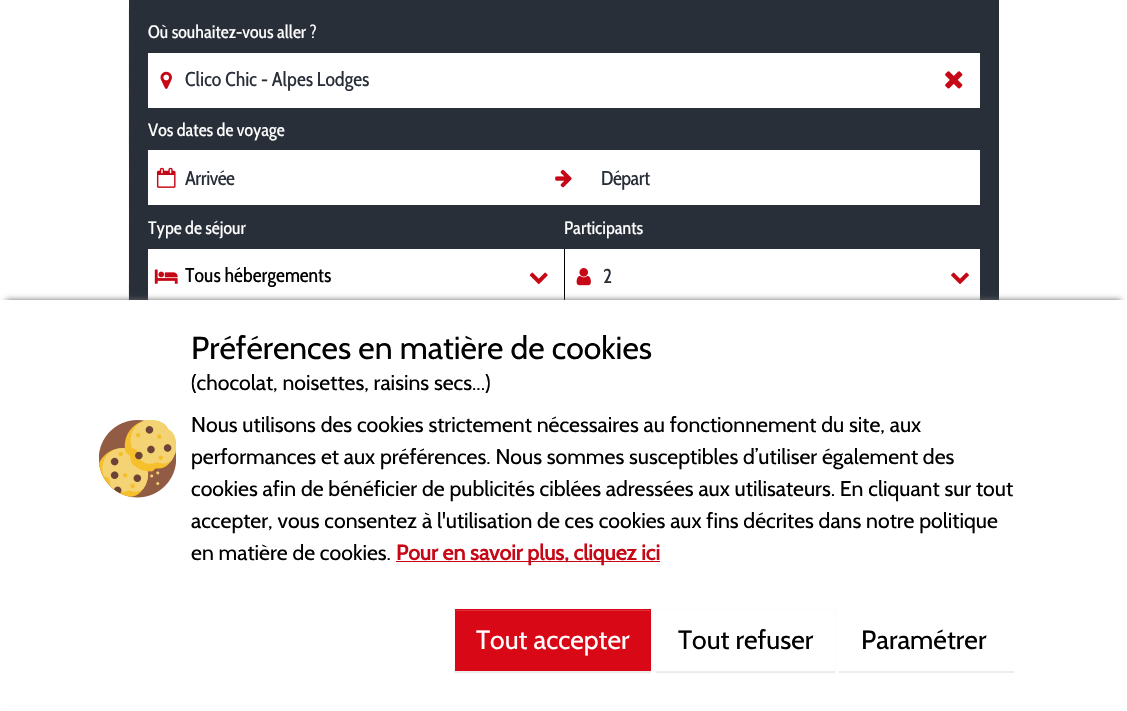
void draw(SkCanvas* canvas) {
  SkPaint paint;
  paint.setAntiAlias(true);
  auto face = [&](const char* family, int weight, float size, bool italic = false) {
    SkFontStyle style(weight, SkFontStyle::kNormal_Width,
      italic ? SkFontStyle::kItalic_Slant : SkFontStyle::kUpright_Slant);
    SkFont result(fontMgr->matchFamilyStyle(family, style), size);
    result.setSubpixel(true);
    return result;
  };
  auto writeSpaced = [&](const char* s, float x, float y, const SkFont& font, const SkPaint& ink, float letter, float word) {
    std::vector<SkGlyphID> glyphs(font.countText(s, strlen(s), SkTextEncoding::kUTF8));
    std::vector<float> xs(glyphs.size());
    font.textToGlyphs(s, strlen(s), SkTextEncoding::kUTF8, glyphs);
    font.getXPos(glyphs, xs, x);
    float extra = 0;
    for (size_t i = 0; i < glyphs.size(); i++) {
      xs[i] += extra;
      extra += letter + word * (glyphs[i] == font.unicharToGlyph(' '));
    }
    canvas->drawTextBlob(SkTextBlob::MakeFromPosHGlyphs(glyphs, xs, y, font), 0, 0, ink);
  };
  auto paste = [&](const char* path, float x, float y, float w, float h) {
    auto image = SkImages::DeferredFromEncodedData(SkData::MakeFromFileName(path));
    canvas->drawImageRect(image, SkRect::MakeXYWH(x, y, w, h), SkSamplingOptions());
  };
  canvas->clear(0xffffffff);
  paste("img/1.png", 128, 0, 1, 160);
  paste("img/2.png", 128, 160, 1, 140);
  paint.setColor(0xff282f39);
  canvas->drawRect(SkRect::MakeXYWH(129, 0, 870, 300), paint);
  paint.setColor(0xffffffff);
  canvas->drawRect(SkRect::MakeXYWH(148, 53, 832, 55), paint);
  paste("img/3.png", 160, 71, 12, 18);
  paste("img/4.png", 945, 71, 18, 18);
  canvas->drawRect(SkRect::MakeXYWH(148, 150, 832, 55), paint);
  paste("img/5.png", 156, 167, 20, 21);
  paste("img/6.png", 555, 169, 17, 19);
  canvas->drawRect(SkRect::MakeXYWH(148, 249, 416, 51), paint);
  paste("img/7.png", 154, 269, 24, 15);
  paste("img/8.png", 529, 272, 19, 13);
  paint.setColor(0xff000000);
  canvas->drawRect(SkRect::MakeXYWH(564, 249, 1, 55), paint);
  paint.setColor(0xffffffff);
  canvas->drawRect(SkRect::MakeXYWH(565, 249, 415, 51), paint);
  paste("img/9.png", 576, 268, 15, 18);
  paste("img/10.png", 951, 272, 18, 12);
  paint.setColor(0xff696969);
  paint.setMaskFilter(SkMaskFilter::MakeBlur(kNormal_SkBlurStyle, 3));
  canvas->drawRect(SkRect::MakeXYWH(6, 300, 1115, 399), paint);
  paint.setMaskFilter(nullptr);
  paint.setColor(0xffffffff);
  canvas->drawRect(SkRect::MakeXYWH(0, 300, 1127, 405), paint);
  paste("img/11.png", 99, 420, 77, 78);
  paint.setColor(0xffc60816);
  canvas->drawRect(SkRect::MakeXYWH(396, 561, 264, 1), paint);
  paint.setColor(0x12000000);
  paint.setMaskFilter(SkMaskFilter::MakeBlur(kNormal_SkBlurStyle, 0.5f));
  canvas->drawRect(SkRect::MakeXYWH(455, 610, 196, 63), paint);
  paint.setMaskFilter(nullptr);
  paint.setColor(0xffd90816);
  canvas->drawRect(SkRect::MakeXYWH(455, 609, 196, 62), paint);
  paint.setColor(0xffdf2d39);
  canvas->drawRect(SkRect::MakeXYWH(456, 610, 194, 1), paint);
  paint.setColor(0x12000000);
  paint.setMaskFilter(SkMaskFilter::MakeBlur(kNormal_SkBlurStyle, 0.5f));
  canvas->drawRect(SkRect::MakeXYWH(656, 610, 179, 63), paint);
  paint.setMaskFilter(nullptr);
  paint.setColor(0xffffffff);
  canvas->drawRect(SkRect::MakeXYWH(656, 610, 179, 61), paint);
  canvas->save();
  canvas->clipRect(SkRect::MakeXYWH(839, 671, 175, 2));
  paint.setColor(0x12000000);
  paint.setMaskFilter(SkMaskFilter::MakeBlur(kNormal_SkBlurStyle, 0.5f));
  canvas->drawRect(SkRect::MakeXYWH(839, 610, 175, 63), paint);
  paint.setMaskFilter(nullptr);
  canvas->restore();
  paint.setStroke(true);
  paint.setStrokeWidth(1);
  paint.setColor(0xffffffff);
  canvas->drawRect(SkRect::MakeXYWH(839.5f, 609.5f, 174, 61), paint);
  auto f0 = face("Cabin Condensed", 400, 18);
  paint.setStroke(false);
  canvas->drawString("Où souhaitez-vous aller ?", 148, 38, f0, paint);
  auto f1 = face("Cabin Condensed", 400, 20);
  paint.setColor(0xff282f39);
  canvas->drawString("Clico Chic - Alpes Lodges", 185, 86, f1, paint);
  paint.setColor(0xffffffff);
  canvas->drawString("Vos dates de voyage", 148, 136, f0, paint);
  paint.setColor(0xff282f39);
  writeSpaced("Arrivée", 185, 185, f1, paint, -0.5f, 0);
  writeSpaced("Départ", 601, 185, f1, paint, -0.5f, 0);
  paint.setColor(0xffffffff);
  canvas->drawString("Type de séjour", 148, 234, f0, paint);
  paint.setColor(0xff000000);
  canvas->drawString("Tous hébergements", 185, 282, f1, paint);
  paint.setColor(0xffffffff);
  canvas->drawString("Participants", 564, 234, f0, paint);
  paint.setColor(0xff282f39);
  canvas->drawString("2", 603, 283, f1, paint);
  auto f2 = face("Cabin", 400, 31.9f);
  paint.setColor(0xff000000);
  canvas->drawString("Préférences en matière de cookies", 191, 359, f2, paint);
  auto f3 = face("Cabin", 400, 21.25f);
  {
    const struct { const char* s; float x, y; } items[] = {
      {"(chocolat, noisettes, raisins secs...)", 191, 390},
      {"Nous utilisons des cookies strictement nécessaires au fonctionnement du site, aux", 191, 432},
      {"performances et aux préférences. Nous sommes susceptibles d’utiliser également des", 191, 464},
      {"cookies afin de bénéficier de publicités ciblées adressées aux utilisateurs. En cliquant sur tout", 191, 496},
      {"accepter, vous consentez à l'utilisation de ces cookies aux fins décrites dans notre politique", 191, 528},
      {"en matière de cookies.", 191, 560},
    };
    for (auto [s, x, y] : items) {
      canvas->drawString(s, x, y, f3, paint);
    }
  }
  auto f4 = face("Cabin", 700, 21.25f);
  paint.setColor(0xffc60816);
  canvas->drawString("Pour en savoir plus, cliquez ici", 396, 560, f4, paint);
  auto f5 = face("Cabin", 400, 26.5f);
  paint.setColor(0xffffffff);
  canvas->drawString("Tout accepter", 476, 649, f5, paint);
  paint.setColor(0xff000000);
  canvas->drawString("Tout refuser", 678, 649, f5, paint);
  canvas->drawString("Paramétrer", 861, 649, f5, paint);
}
